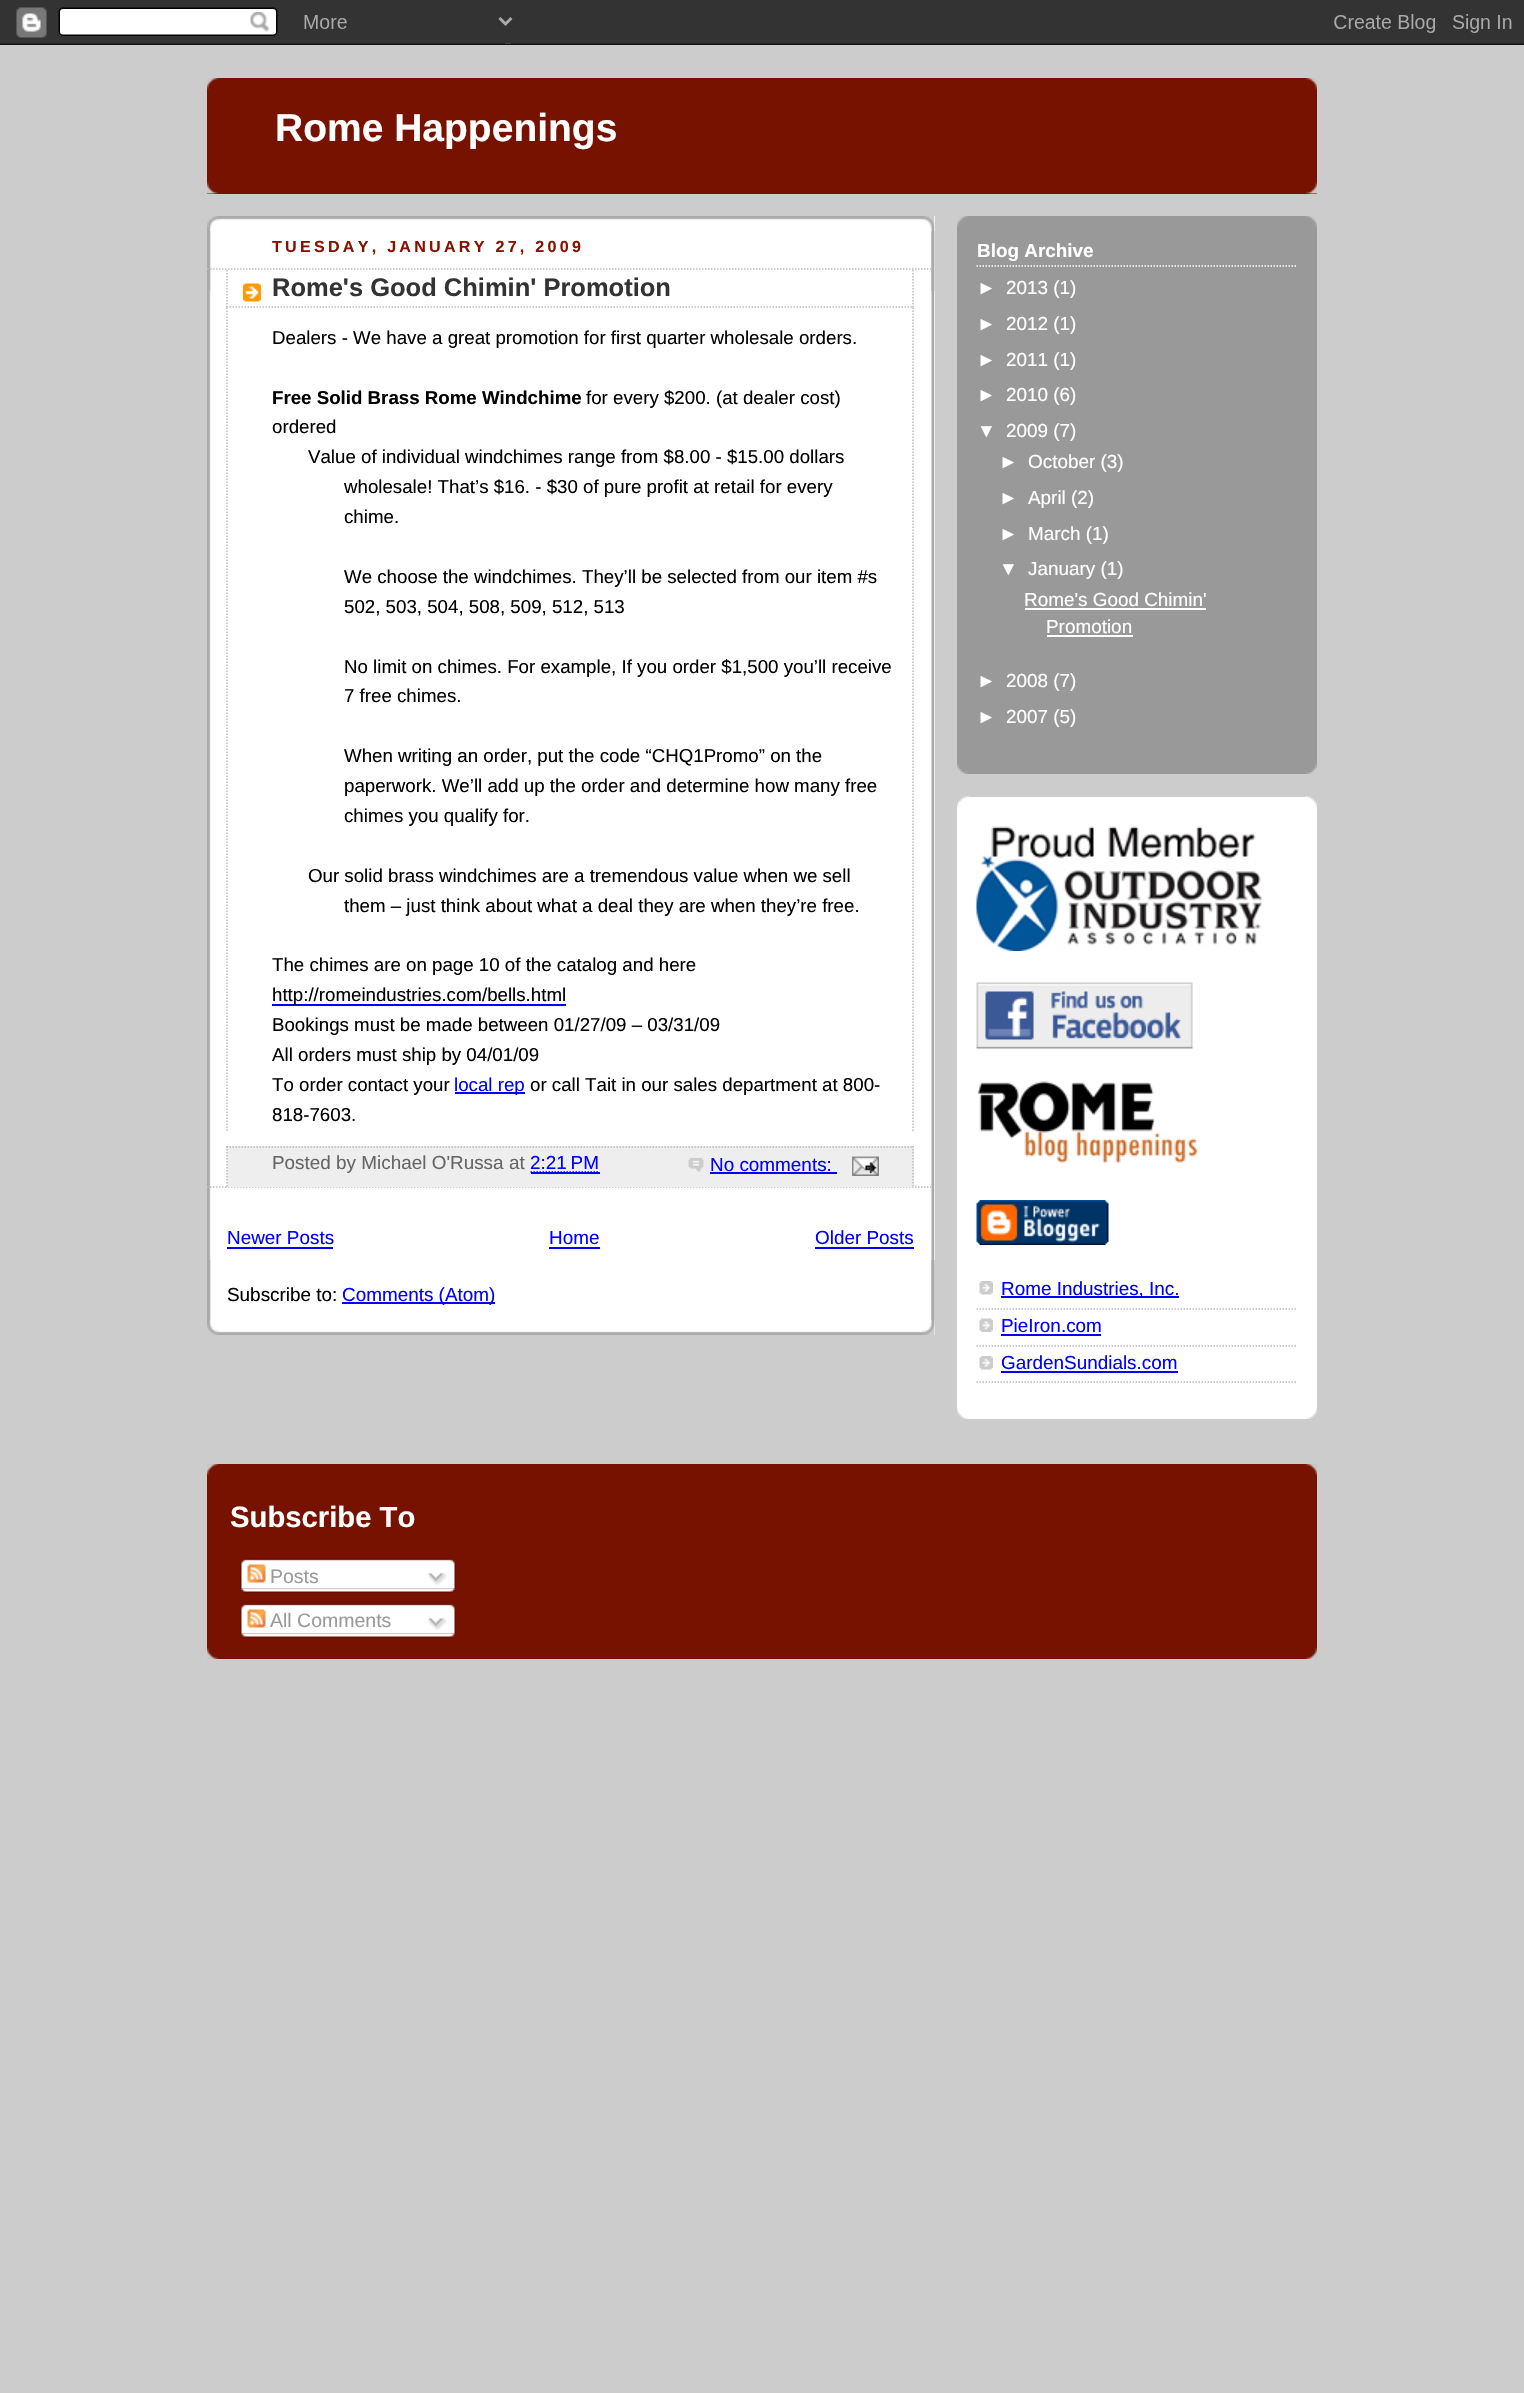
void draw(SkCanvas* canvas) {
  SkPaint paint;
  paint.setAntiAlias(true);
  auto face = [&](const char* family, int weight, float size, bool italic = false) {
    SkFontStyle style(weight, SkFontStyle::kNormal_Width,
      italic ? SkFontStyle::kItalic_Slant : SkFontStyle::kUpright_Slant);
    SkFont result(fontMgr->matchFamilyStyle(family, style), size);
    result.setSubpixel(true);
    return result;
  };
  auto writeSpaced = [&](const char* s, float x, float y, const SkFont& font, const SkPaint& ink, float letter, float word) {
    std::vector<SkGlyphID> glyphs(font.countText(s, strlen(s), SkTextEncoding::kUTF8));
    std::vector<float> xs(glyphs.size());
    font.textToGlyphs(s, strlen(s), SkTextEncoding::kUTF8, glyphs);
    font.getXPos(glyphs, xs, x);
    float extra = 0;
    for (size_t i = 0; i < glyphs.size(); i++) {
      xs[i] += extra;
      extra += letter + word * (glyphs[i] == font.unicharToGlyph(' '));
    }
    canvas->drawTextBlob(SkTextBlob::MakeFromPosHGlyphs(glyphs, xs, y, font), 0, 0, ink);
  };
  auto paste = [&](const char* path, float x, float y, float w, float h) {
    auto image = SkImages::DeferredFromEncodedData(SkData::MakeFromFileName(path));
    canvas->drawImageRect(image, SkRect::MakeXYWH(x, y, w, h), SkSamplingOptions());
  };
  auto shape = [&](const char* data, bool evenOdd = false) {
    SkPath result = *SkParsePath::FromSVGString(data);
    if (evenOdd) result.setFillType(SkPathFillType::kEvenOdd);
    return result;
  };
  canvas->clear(0xffcccccc);
  paste("img/1.png", 0, 0, 1524, 45);
  paint.setColor(0xff771100);
  canvas->drawRect(SkRect::MakeXYWH(207, 78, 1110, 116), paint);
  paste("img/2.png", 207, 78, 1110, 12);
  paste("img/3.png", 207, 181, 1110, 13);
  paint.setColor(0xffffffff);
  canvas->drawRect(SkRect::MakeXYWH(209, 216, 726, 1119), paint);
  paste("img/4.png", 207, 1260, 728, 75);
  paste("img/5.png", 207, 216, 728, 75);
  paste("img/6.png", 207, 231, 728, 1089);
  paint.setStroke(true);
  paint.setStrokeWidth(1.5f);
  paint.setColor(0xffbbbbbb);
  paint.setPathEffect(SkDashPathEffect::Make({{1.5f, 1.5f}}, 0));
  canvas->drawPath(shape("M207 269H933"), paint);
  paint.setPathEffect(nullptr);
  paint.setPathEffect(SkDashPathEffect::Make({{1.5f, 1.5f}}, 0));
  canvas->drawPath(shape("M207 1187H933"), paint);
  paint.setPathEffect(nullptr);
  paste("img/7.png", 243, 283, 18, 19);
  paint.setPathEffect(SkDashPathEffect::Make({{1.5f, 1.5f}}, 0));
  canvas->drawPath(shape("M913 270V307.5"), paint);
  paint.setPathEffect(nullptr);
  paint.setPathEffect(SkDashPathEffect::Make({{1.5f, 1.5f}}, 0));
  canvas->drawPath(shape("M226.5 307H913.5"), paint);
  paint.setPathEffect(nullptr);
  paint.setPathEffect(SkDashPathEffect::Make({{1.5f, 1.5f}}, 0));
  canvas->drawPath(shape("M227 270V307.5"), paint);
  paint.setPathEffect(nullptr);
  paint.setPathEffect(SkDashPathEffect::Make({{1.5f, 1.5f}}, 0));
  canvas->drawPath(shape("M913 307.5V1131"), paint);
  paint.setPathEffect(nullptr);
  paint.setPathEffect(SkDashPathEffect::Make({{1.5f, 1.5f}}, 0));
  canvas->drawPath(shape("M227 307.5V1131"), paint);
  paint.setPathEffect(nullptr);
  paint.setStroke(false);
  {
    const struct { float x, y, w, h; SkColor color; } items[] = {
      {272, 1004, 294, 2, 0xff0000ff},
      {455, 1092, 70, 2, 0xff0000ff},
      {227, 1146, 687, 41, 0xffeeeeee},
    };
    for (auto [x, y, w, h, color] : items) {
      paint.setColor(color);
      canvas->drawRect(SkRect::MakeXYWH(x, y, w, h), paint);
    }
  }
  paint.setStroke(true);
  paint.setColor(0xffbbbbbb);
  paint.setPathEffect(SkDashPathEffect::Make({{1.5f, 1.5f}}, 0));
  canvas->drawPath(shape("M226.5 1147H913.5"), paint);
  paint.setPathEffect(nullptr);
  paint.setPathEffect(SkDashPathEffect::Make({{1.5f, 1.5f}}, 0));
  canvas->drawPath(shape("M913 1146V1186.5"), paint);
  paint.setPathEffect(nullptr);
  paint.setPathEffect(SkDashPathEffect::Make({{1.5f, 1.5f}}, 0));
  canvas->drawPath(shape("M227 1146V1186.5"), paint);
  paint.setPathEffect(nullptr);
  paint.setColor(0xff0000ff);
  paint.setPathEffect(SkDashPathEffect::Make({{1.5f, 1.5f}}, 0));
  canvas->drawPath(shape("M530.5 1172H599.5"), paint);
  paint.setPathEffect(nullptr);
  paint.setStroke(false);
  canvas->drawRect(SkRect::MakeXYWH(531, 1172, 69, 2), paint);
  paste("img/8.png", 688, 1158, 16, 14);
  canvas->drawRect(SkRect::MakeXYWH(710, 1172, 127, 2), paint);
  paste("img/9.png", 852, 1156, 27, 20);
  {
    const struct { float x, y, w, h; SkColor color; } items[] = {
      {227, 1247, 106, 2, 0xff0000ff},
      {549, 1247, 51, 2, 0xff0000ff},
      {815, 1247, 99, 2, 0xff0000ff},
      {342, 1302, 153, 2, 0xff0000ff},
      {957, 216, 360, 558, 0xff999999},
    };
    for (auto [x, y, w, h, color] : items) {
      paint.setColor(color);
      canvas->drawRect(SkRect::MakeXYWH(x, y, w, h), paint);
    }
  }
  paste("img/10.png", 957, 763, 360, 11);
  paste("img/11.png", 957, 216, 360, 11);
  paint.setStroke(true);
  paint.setColor(0xffffffff);
  paint.setPathEffect(SkDashPathEffect::Make({{1.5f, 1.5f}}, 0));
  canvas->drawPath(shape("M976.5 266H1297.5"), paint);
  paint.setPathEffect(nullptr);
  paint.setStroke(false);
  {
    const struct { float x, y, w, h; SkColor color; } items[] = {
      {1025, 608, 181, 2, 0xffffffff},
      {1047, 635, 86, 2, 0xffffffff},
      {957, 797, 360, 622, 0xffffffff},
    };
    for (auto [x, y, w, h, color] : items) {
      paint.setColor(color);
      canvas->drawRect(SkRect::MakeXYWH(x, y, w, h), paint);
    }
  }
  paste("img/12.png", 957, 796, 360, 12);
  paste("img/13.png", 957, 1408, 360, 11);
  paste("img/14.png", 976, 826, 286, 125);
  paste("img/15.png", 976, 982, 217, 67);
  paste("img/16.png", 977, 1081, 221, 82);
  paste("img/17.png", 976, 1200, 133, 45);
  paste("img/18.png", 979, 1281, 14, 14);
  paint.setStroke(true);
  paint.setColor(0xffbbbbbb);
  paint.setPathEffect(SkDashPathEffect::Make({{1.5f, 1.5f}}, 0));
  canvas->drawPath(shape("M976.5 1309H1297.5"), paint);
  paint.setPathEffect(nullptr);
  paint.setStroke(false);
  paint.setColor(0xff0000ff);
  canvas->drawRect(SkRect::MakeXYWH(1001, 1296, 178, 2), paint);
  paste("img/19.png", 979, 1318, 14, 14);
  paint.setStroke(true);
  paint.setColor(0xffbbbbbb);
  paint.setPathEffect(SkDashPathEffect::Make({{1.5f, 1.5f}}, 0));
  canvas->drawPath(shape("M976.5 1346H1297.5"), paint);
  paint.setPathEffect(nullptr);
  paint.setStroke(false);
  paint.setColor(0xff0000ff);
  canvas->drawRect(SkRect::MakeXYWH(1001, 1334, 100, 2), paint);
  paste("img/18.png", 979, 1356, 14, 14);
  paint.setStroke(true);
  paint.setColor(0xffbbbbbb);
  paint.setPathEffect(SkDashPathEffect::Make({{1.5f, 1.5f}}, 0));
  canvas->drawPath(shape("M976.5 1382H1297.5"), paint);
  paint.setPathEffect(nullptr);
  paint.setStroke(false);
  paint.setColor(0xff0000ff);
  canvas->drawRect(SkRect::MakeXYWH(1001, 1371, 177, 2), paint);
  paint.setColor(0xff771100);
  canvas->drawRect(SkRect::MakeXYWH(207, 1464, 1110, 195), paint);
  paste("img/2.png", 207, 1464, 1110, 12);
  paste("img/20.png", 207, 1647, 1110, 12);
  paste("img/21.png", 240, 1558, 216, 31);
  paste("img/22.png", 247, 1564, 19, 19);
  paste("img/23.png", 427, 1572, 20, 14);
  paste("img/24.png", 240, 1588, 216, 5);
  paste("img/21.png", 240, 1603, 216, 31);
  paste("img/22.png", 247, 1609, 19, 19);
  paste("img/23.png", 427, 1617, 20, 14);
  paste("img/24.png", 240, 1633, 216, 5);
  auto f0 = face("Liberation Sans", 700, 39);
  paint.setColor(0xffffffff);
  canvas->drawString("Rome Happenings", 275, 141, f0, paint);
  auto f1 = face("Liberation Sans", 700, 16.1f);
  paint.setColor(0xff881100);
  writeSpaced("TUESDAY, JANUARY 27, 2009", 272, 252, f1, paint, 3.25f, 0);
  auto f2 = face("Liberation Sans", 700, 25.5f);
  paint.setColor(0xff333333);
  canvas->drawString("Rome's Good Chimin' Promotion", 272, 296, f2, paint);
  auto f3 = face("Liberation Sans", 400, 18.7f);
  paint.setColor(0xff000000);
  canvas->drawString("Dealers - We have a great promotion for first quarter wholesale orders.", 272, 344, f3, paint);
  auto f4 = face("Liberation Sans", 700, 18.7f);
  canvas->drawString("Free Solid Brass Rome Windchime", 272, 404, f4, paint);
  {
    const struct { const char* s; float x, y; } items[] = {
      {"for every $200. (at dealer cost)", 586, 404},
      {"ordered", 272, 433},
      {"Value of individual windchimes range from $8.00 - $15.00 dollars", 308, 463},
      {"wholesale! That’s $16. - $30 of pure profit at retail for every", 344, 493},
      {"chime.", 344, 523},
      {"We choose the windchimes. They’ll be selected from our item #s", 344, 583},
      {"502, 503, 504, 508, 509, 512, 513", 344, 613},
      {"No limit on chimes. For example, If you order $1,500 you’ll receive", 344, 673},
      {"7 free chimes.", 344, 702},
      {"When writing an order, put the code “CHQ1Promo” on the", 344, 762},
      {"paperwork. We’ll add up the order and determine how many free", 344, 792},
      {"chimes you qualify for.", 344, 822},
      {"Our solid brass windchimes are a tremendous value when we sell", 308, 882},
      {"them – just think about what a deal they are when they’re free.", 344, 912},
      {"The chimes are on page 10 of the catalog and here", 272, 971},
      {"http://romeindustries.com/bells.html", 272, 1001},
      {"Bookings must be made between 01/27/09 – 03/31/09", 272, 1031},
      {"All orders must ship by 04/01/09", 272, 1061},
      {"To order contact your", 272, 1091},
    };
    for (auto [s, x, y] : items) {
      canvas->drawString(s, x, y, f3, paint);
    }
  }
  paint.setColor(0xff0000ff);
  canvas->drawString("local rep", 454, 1091, f3, paint);
  paint.setColor(0xff000000);
  canvas->drawString("or call Tait in our sales department at 800-", 530, 1091, f3, paint);
  canvas->drawString("818-7603.", 272, 1121, f3, paint);
  auto f5 = face("Liberation Sans", 400, 18.9f);
  paint.setColor(0xff666666);
  canvas->drawString("Posted by Michael O'Russa", 272, 1169, f5, paint);
  canvas->drawString("at", 509, 1169, f5, paint);
  paint.setColor(0xff0000ff);
  {
    const struct { const char* s; float x, y; } items[] = {
      {"2:21 PM", 530, 1169},
      {"No comments:", 710, 1171},
      {"Newer Posts", 227, 1244},
      {"Home", 549, 1244},
      {"Older Posts", 815, 1244},
    };
    for (auto [s, x, y] : items) {
      canvas->drawString(s, x, y, f5, paint);
    }
  }
  paint.setColor(0xff000000);
  canvas->drawString("Subscribe to:", 227, 1301, f5, paint);
  paint.setColor(0xff0000ff);
  canvas->drawString("Comments (Atom)", 342, 1301, f5, paint);
  auto f6 = face("Liberation Sans", 700, 18.9f);
  paint.setColor(0xffffffff);
  canvas->drawString("Blog Archive", 977, 257, f6, paint);
  {
    const struct { const char* s; float x, y; } items[] = {
      {"►", 977, 294},
      {"2013 (1)", 1006, 294},
      {"►", 977, 330},
      {"2012 (1)", 1006, 330},
      {"►", 977, 366},
      {"2011 (1)", 1006, 366},
      {"►", 977, 401},
      {"2010 (6)", 1006, 401},
      {"▼", 977, 437},
      {"2009 (7)", 1006, 437},
      {"►", 999, 468},
      {"October (3)", 1028, 468},
      {"►", 999, 504},
      {"April (2)", 1028, 504},
      {"►", 999, 540},
      {"March (1)", 1028, 540},
      {"▼", 999, 575},
      {"January (1)", 1028, 575},
      {"Rome's Good Chimin'", 1024, 606},
      {"Promotion", 1046, 633},
      {"►", 977, 687},
      {"2008 (7)", 1006, 687},
      {"►", 977, 723},
      {"2007 (5)", 1006, 723},
    };
    for (auto [s, x, y] : items) {
      canvas->drawString(s, x, y, f5, paint);
    }
  }
  paint.setColor(0xff0000ff);
  {
    const struct { const char* s; float x, y; } items[] = {
      {"Rome Industries, Inc.", 1001, 1295},
      {"PieIron.com", 1001, 1332},
      {"GardenSundials.com", 1001, 1369},
    };
    for (auto [s, x, y] : items) {
      canvas->drawString(s, x, y, f5, paint);
    }
  }
  auto f7 = face("Liberation Sans", 700, 29.25f);
  paint.setColor(0xffffffff);
  canvas->drawString("Subscribe To", 230, 1527, f7, paint);
  auto f8 = face("Liberation Sans", 400, 19.5f);
  paint.setColor(0xff999999);
  canvas->drawString("Posts", 270, 1583, f8, paint);
  canvas->drawString("All Comments", 270, 1627, f8, paint);
}
